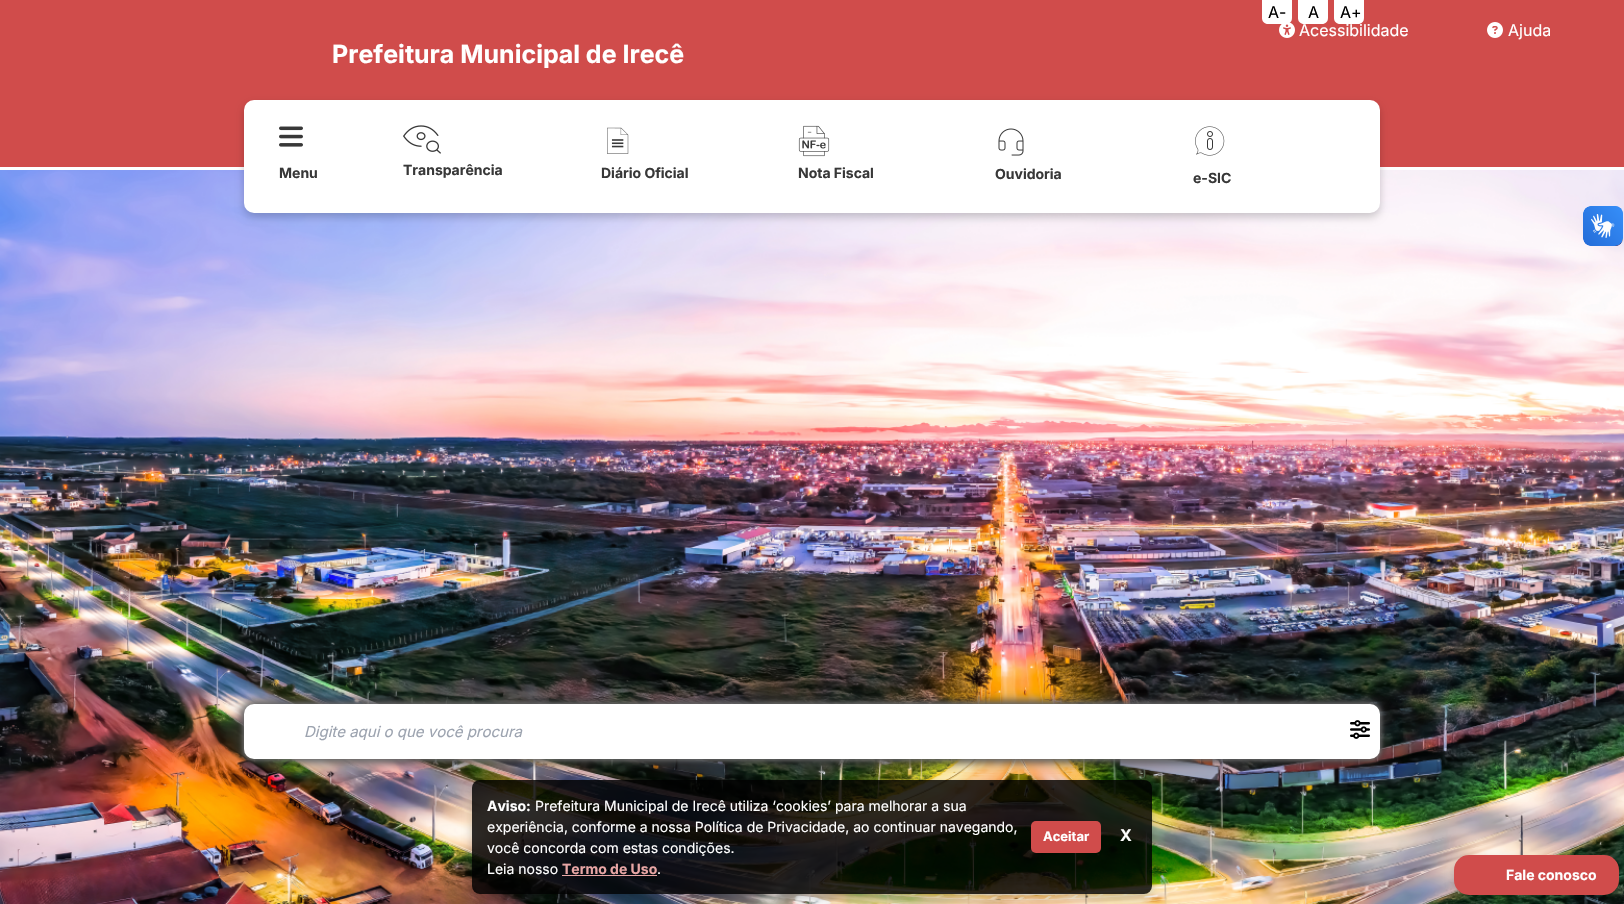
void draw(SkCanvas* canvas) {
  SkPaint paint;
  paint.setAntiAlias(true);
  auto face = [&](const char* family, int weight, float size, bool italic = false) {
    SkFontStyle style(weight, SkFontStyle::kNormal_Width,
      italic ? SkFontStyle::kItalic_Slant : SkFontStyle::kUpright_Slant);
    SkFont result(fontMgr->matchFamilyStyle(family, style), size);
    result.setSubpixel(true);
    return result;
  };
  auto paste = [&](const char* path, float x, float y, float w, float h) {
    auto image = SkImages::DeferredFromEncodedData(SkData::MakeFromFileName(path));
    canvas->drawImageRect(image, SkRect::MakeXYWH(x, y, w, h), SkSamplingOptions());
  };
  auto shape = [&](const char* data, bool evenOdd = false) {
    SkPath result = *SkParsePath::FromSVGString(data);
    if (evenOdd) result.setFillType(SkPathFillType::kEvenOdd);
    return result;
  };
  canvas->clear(0xffffffff);
  paint.setColor(0xffd04c4b);
  canvas->drawRect(SkRect::MakeXYWH(0, 0, 1624, 167), paint);
  paste("img/1.png", 1279, 22, 16, 16);
  paint.setColor(0xffffffff);
  canvas->drawPath(shape("M1262 0H1292V18C1292 21.5 1289.5 24 1286 24H1268C1264.5 24 1262 21.5 1262 18Z"), paint);
  canvas->drawPath(shape("M1298 0H1328V18C1328 21.5 1325.5 24 1322 24H1304C1300.5 24 1298 21.5 1298 18Z"), paint);
  canvas->drawPath(shape("M1334 0H1364V18C1364 21.5 1361.5 24 1358 24H1340C1336.5 24 1334 21.5 1334 18Z"), paint);
  paste("img/2.png", 1487, 22, 16, 16);
  paste("img/9.png", 0, 170, 1624, 734);
  paint.setColor(0x33000000);
  paint.setMaskFilter(SkMaskFilter::MakeBlur(kNormal_SkBlurStyle, 4));
  canvas->drawRoundRect(SkRect::MakeXYWH(244, 104, 1136, 113), 10, 10, paint);
  paint.setMaskFilter(nullptr);
  paint.setColor(0xffffffff);
  canvas->drawRoundRect(SkRect::MakeXYWH(244, 100, 1136, 113), 10, 10, paint);
  paste("img/3.png", 279, 126, 24, 21);
  paste("img/4.png", 403, 125, 38, 29);
  paste("img/5.png", 607, 127, 22, 27);
  paste("img/6.png", 798, 125, 32, 32);
  paste("img/7.png", 998, 128, 26, 28);
  paste("img/8.png", 1195, 126, 30, 30);
  paint.setColor(0xff484545);
  paint.setMaskFilter(SkMaskFilter::MakeBlur(kNormal_SkBlurStyle, 7.5f));
  canvas->drawRoundRect(SkRect::MakeXYWH(244, 704, 1136, 55), 10, 10, paint);
  paint.setMaskFilter(nullptr);
  paint.setColor(0xffffffff);
  paint.setMaskFilter(SkMaskFilter::MakeBlur(kNormal_SkBlurStyle, 2.5f));
  canvas->drawRoundRect(SkRect::MakeXYWH(244, 704, 1136, 55), 10, 10, paint);
  paint.setMaskFilter(nullptr);
  paint.setColor(0xff171717);
  paint.setMaskFilter(SkMaskFilter::MakeBlur(kNormal_SkBlurStyle, 5));
  canvas->drawRoundRect(SkRect::MakeXYWH(244, 704, 1136, 55), 10, 10, paint);
  paint.setMaskFilter(nullptr);
  paint.setColor(0xffffffff);
  canvas->drawRoundRect(SkRect::MakeXYWH(244, 704, 1136, 55), 10, 10, paint);
  paste("img/10.png", 1350, 720, 20, 19);
  paint.setColor(0x33000000);
  paint.setMaskFilter(SkMaskFilter::MakeBlur(kNormal_SkBlurStyle, 4));
  canvas->drawRoundRect(SkRect::MakeXYWH(1454, 859, 165, 40), 15, 15, paint);
  paint.setMaskFilter(nullptr);
  paint.setColor(0xffd04c4b);
  canvas->drawRoundRect(SkRect::MakeXYWH(1454, 855, 165, 40), 15, 15, paint);
  paste("img/11.png", 1583, 206, 40, 40);
  paste("img/12.png", 1583, 206, 40, 40);
  canvas->save();
  canvas->clipPath(shape("M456 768H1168V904H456ZM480 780H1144C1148.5 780 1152 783.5 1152 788V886C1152 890.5 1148.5 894 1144 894H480C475.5 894 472 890.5 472 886V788C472 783.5 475.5 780 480 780Z", true), true);
  paint.setColor(0x33000000);
  paint.setMaskFilter(SkMaskFilter::MakeBlur(kNormal_SkBlurStyle, 5));
  canvas->drawRoundRect(SkRect::MakeXYWH(472, 784, 680, 114), 8, 8, paint);
  paint.setMaskFilter(nullptr);
  canvas->restore();
  paint.setColor(0xd4000000);
  canvas->drawRoundRect(SkRect::MakeXYWH(472, 780, 680, 114), 8, 8, paint);
  paint.setColor(0xffe8a6a5);
  canvas->drawRect(SkRect::MakeXYWH(562, 875, 95, 1), paint);
  paint.setColor(0xffd04c4b);
  canvas->drawRoundRect(SkRect::MakeXYWH(1031, 821, 70, 32), 5, 5, paint);
  auto f0 = face("Inter", 400, 16);
  paint.setColor(0xff000000);
  {
    const struct { const char* s; float x, y; } items[] = {
      {"A-", 1268, 18},
      {"A", 1308, 18},
      {"A+", 1340, 18},
    };
    for (auto [s, x, y] : items) {
      canvas->drawString(s, x, y, f0, paint);
    }
  }
  paint.setColor(0xffffffff);
  canvas->drawString("Acessibilidade", 1299, 36, f0, paint);
  canvas->drawString("Ajuda", 1508, 36, f0, paint);
  auto f1 = face("Inter", 700, 25);
  canvas->drawString("Prefeitura Municipal de Irecê", 332, 63, f1, paint);
  auto f2 = face("Inter", 700, 14);
  paint.setColor(0xff383838);
  {
    const struct { const char* s; float x, y; } items[] = {
      {"Menu", 279, 178},
      {"Transparência", 403, 175},
      {"Diário Oficial", 601, 178},
      {"Nota Fiscal", 798, 178},
      {"Ouvidoria", 995, 179},
      {"e-SIC", 1193, 183},
    };
    for (auto [s, x, y] : items) {
      canvas->drawString(s, x, y, f2, paint);
    }
  }
  auto f3 = face("Inter", 400, 15, true);
  paint.setColor(0xff9ca3af);
  canvas->drawString("Digite aqui o que você procura", 304, 737, f3, paint);
  paint.setColor(0xffffffff);
  canvas->drawString("Fale conosco", 1506, 880, f2, paint);
  canvas->drawString("Aviso:", 487, 811, f2, paint);
  auto f4 = face("Inter", 400, 14);
  {
    const struct { const char* s; float x, y; } items[] = {
      {"Prefeitura Municipal de Irecê utiliza ‘cookies’ para melhorar a sua", 535, 811},
      {"experiência, conforme a nossa Política de Privacidade, ao continuar navegando,", 487, 832},
      {"você concorda com estas condições.", 487, 853},
      {"Leia nosso", 487, 874},
    };
    for (auto [s, x, y] : items) {
      canvas->drawString(s, x, y, f4, paint);
    }
  }
  paint.setColor(0xffe8a6a5);
  canvas->drawString("Termo de Uso", 562, 874, f2, paint);
  paint.setColor(0xffffffff);
  canvas->drawString(".", 657, 874, f4, paint);
  auto f5 = face("Inter", 700, 13);
  canvas->drawString("Aceitar", 1043, 841, f5, paint);
  auto f6 = face("Inter", 700, 16);
  canvas->drawString("X", 1120, 841, f6, paint);
}
